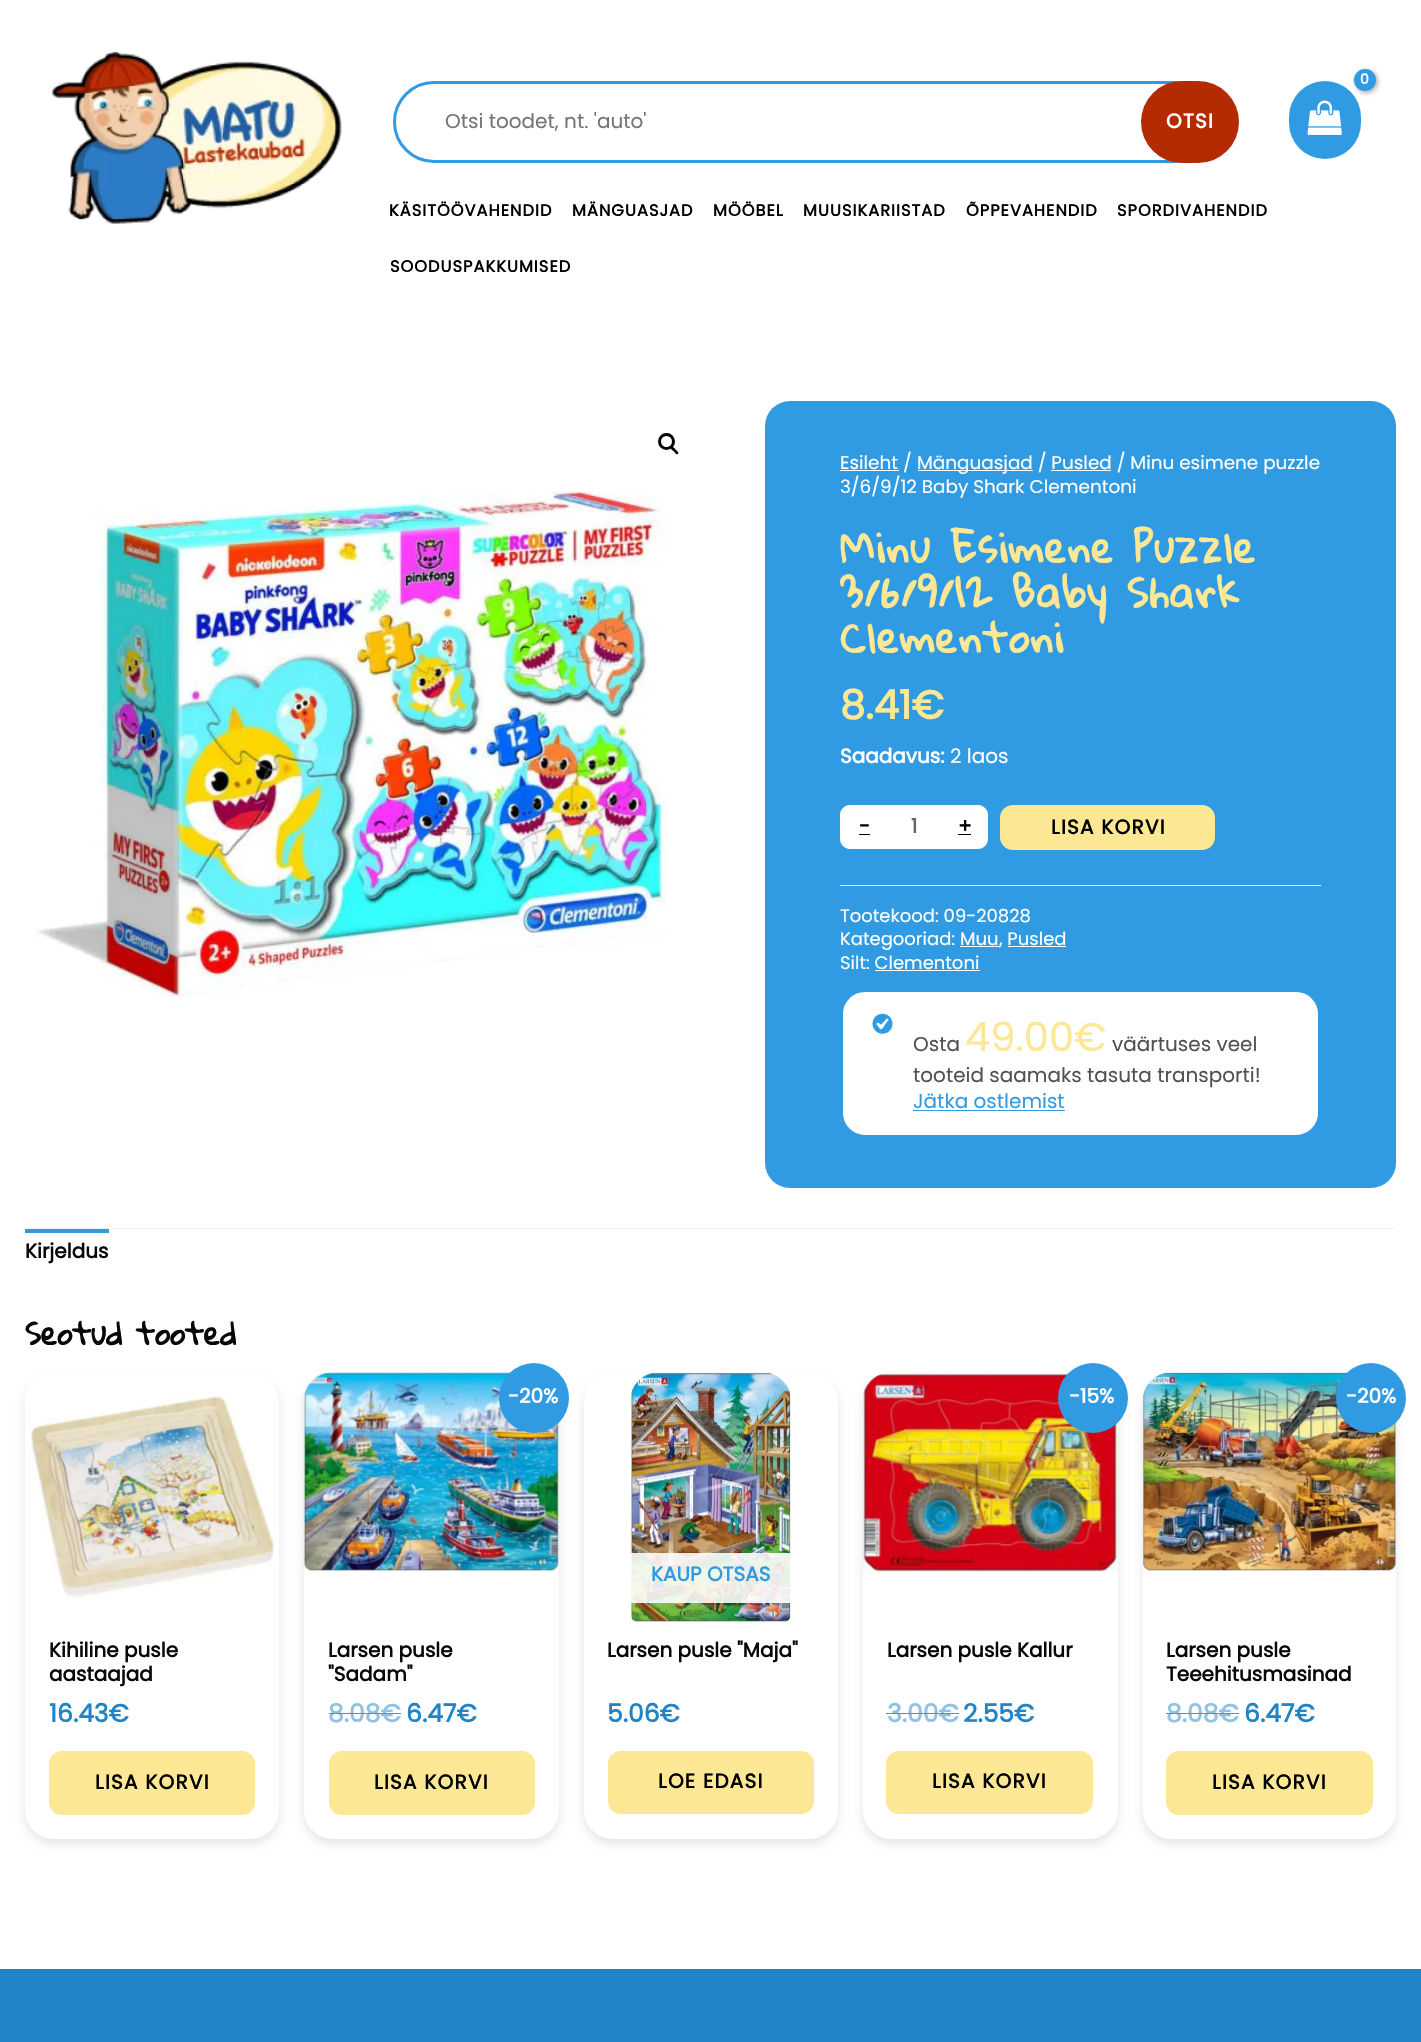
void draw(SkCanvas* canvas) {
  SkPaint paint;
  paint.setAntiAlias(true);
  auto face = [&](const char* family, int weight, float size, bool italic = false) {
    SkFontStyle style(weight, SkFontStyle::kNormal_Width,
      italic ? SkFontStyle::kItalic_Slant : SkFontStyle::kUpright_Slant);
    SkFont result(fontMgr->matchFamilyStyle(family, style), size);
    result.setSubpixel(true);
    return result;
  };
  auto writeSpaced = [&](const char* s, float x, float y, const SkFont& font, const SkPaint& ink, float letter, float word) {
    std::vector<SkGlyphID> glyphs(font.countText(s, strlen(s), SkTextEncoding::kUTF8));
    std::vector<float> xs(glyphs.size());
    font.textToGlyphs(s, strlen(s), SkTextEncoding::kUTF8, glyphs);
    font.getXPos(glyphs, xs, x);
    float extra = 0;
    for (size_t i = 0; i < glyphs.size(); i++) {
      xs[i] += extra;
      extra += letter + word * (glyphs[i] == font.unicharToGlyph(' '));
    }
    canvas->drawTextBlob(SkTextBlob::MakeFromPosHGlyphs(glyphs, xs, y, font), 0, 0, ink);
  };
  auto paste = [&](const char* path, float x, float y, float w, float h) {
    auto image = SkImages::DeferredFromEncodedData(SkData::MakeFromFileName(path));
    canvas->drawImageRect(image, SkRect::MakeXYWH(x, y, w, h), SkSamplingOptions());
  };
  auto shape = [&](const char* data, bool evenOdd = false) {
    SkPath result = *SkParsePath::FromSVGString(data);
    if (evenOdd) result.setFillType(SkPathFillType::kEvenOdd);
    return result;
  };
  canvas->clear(0xffffffff);
  paste("img/1.png", 604, 1, 6, 2);
  paste("img/2.png", 51, 51, 291, 173);
  paint.setColor(0xff309be3);
  canvas->drawRoundRect(SkRect::MakeXYWH(1289, 81, 72, 78), 36, 36, paint);
  paint.setColor(0x4d000000);
  paint.setMaskFilter(SkMaskFilter::MakeBlur(kNormal_SkBlurStyle, 2));
  canvas->drawRoundRect(SkRect::MakeXYWH(1355, 70, 23, 23), 11.5f, 11.5f, paint);
  paint.setMaskFilter(nullptr);
  paint.setColor(0xff309be3);
  canvas->drawCircle(1365, 80, 11, paint);
  paste("img/3.png", 1307, 100, 35, 35);
  paint.setStroke(true);
  paint.setStrokeWidth(3);
  canvas->drawRoundRect(SkRect::MakeXYWH(394.5f, 82.5f, 820, 79), 39.5f, 39.5f, paint);
  paint.setStroke(false);
  paint.setColor(0xffb42b02);
  canvas->drawRoundRect(SkRect::MakeXYWH(1141, 81, 98, 82), 41, 41, paint);
  paint.setStroke(true);
  paint.setColor(0xff000000);
  canvas->drawCircle(666.5f, 441.5f, 7, paint);
  paint.setStroke(false);
  canvas->drawPath(shape("M671 447C672.5 445.5 674.5 448.5 675.5 449.5C676 450 679.5 452.5 678 454C676.5 455.5 674.5 452 673.5 451C672.5 450.5 669.5 448 671 447Z"), paint);
  paste("img/4.png", 36, 491, 631, 510);
  paint.setColor(0xff309be3);
  canvas->drawRoundRect(SkRect::MakeXYWH(765, 401, 631, 787), 25, 25, paint);
  {
    const struct { float x, y, w, h; SkColor color; } items[] = {
      {840, 470, 59, 1, 0xffffffff},
      {918, 470, 115, 1, 0xffffffff},
      {1051, 470, 60, 1, 0xffffffff},
    };
    for (auto [x, y, w, h, color] : items) {
      paint.setColor(color);
      canvas->drawRect(SkRect::MakeXYWH(x, y, w, h), paint);
    }
  }
  canvas->drawPath(shape("M850 805H888V849H850C844.5 849 840 844.5 840 839V815C840 809.5 844.5 805 850 805Z"), paint);
  paint.setColor(0xff000000);
  canvas->drawRect(SkRect::MakeXYWH(859, 834, 11, 1), paint);
  paint.setColor(0xffffffff);
  canvas->drawRect(SkRect::MakeXYWH(888, 805, 52, 44), paint);
  canvas->drawPath(shape("M940 805H978C983.5 805 988 809.5 988 815V839C988 844.5 983.5 849 978 849H940Z"), paint);
  paint.setColor(0xff000000);
  canvas->drawRect(SkRect::MakeXYWH(958, 834, 13, 1), paint);
  paint.setColor(0xfffce795);
  canvas->drawRoundRect(SkRect::MakeXYWH(1000, 805, 215, 45), 13, 13, paint);
  {
    const struct { float x, y, w, h; SkColor color; } items[] = {
      {840, 885, 481, 1, 0xffebebeb},
      {960, 946, 39, 1, 0xffffffff},
      {1008, 946, 58, 1, 0xffffffff},
      {875, 970, 105, 1, 0xffffffff},
    };
    for (auto [x, y, w, h, color] : items) {
      paint.setColor(color);
      canvas->drawRect(SkRect::MakeXYWH(x, y, w, h), paint);
    }
  }
  canvas->drawRoundRect(SkRect::MakeXYWH(841.5f, 990.5f, 478, 146), 23.5f, 23.5f, paint);
  paint.setStroke(true);
  paint.setColor(0xff309be3);
  canvas->drawRoundRect(SkRect::MakeXYWH(841.5f, 990.5f, 478, 146), 23.5f, 23.5f, paint);
  paste("img/5.png", 872, 1013, 21, 21);
  paint.setStroke(false);
  {
    const struct { float x, y, w, h; SkColor color; } items[] = {
      {913, 1110, 152, 1, 0xff309be3},
      {25, 1228, 1371, 1, 0xfff2f2f2},
      {25, 1229, 84, 4, 0xff309be3},
    };
    for (auto [x, y, w, h, color] : items) {
      paint.setColor(color);
      canvas->drawRect(SkRect::MakeXYWH(x, y, w, h), paint);
    }
  }
  canvas->save();
  canvas->clipPath(shape("M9 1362H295V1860H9ZM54 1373H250C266 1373 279 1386 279 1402V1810C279 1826 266 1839 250 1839H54C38 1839 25 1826 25 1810V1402C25 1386 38 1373 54 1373Z", true), true);
  paint.setColor(0x1a000000);
  paint.setMaskFilter(SkMaskFilter::MakeBlur(kNormal_SkBlurStyle, 5));
  canvas->drawRoundRect(SkRect::MakeXYWH(25, 1378, 254, 466), 29, 29, paint);
  paint.setMaskFilter(nullptr);
  canvas->restore();
  paste("img/6.png", 30, 1395, 245, 203);
  paint.setColor(0xfffce795);
  canvas->drawRoundRect(SkRect::MakeXYWH(49, 1751, 206, 64), 13, 13, paint);
  canvas->save();
  canvas->clipPath(shape("M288 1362H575V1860H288ZM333 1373H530C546 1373 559 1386 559 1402V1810C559 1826 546 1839 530 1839H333C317 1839 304 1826 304 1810V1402C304 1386 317 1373 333 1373Z", true), true);
  paint.setColor(0x1a000000);
  paint.setMaskFilter(SkMaskFilter::MakeBlur(kNormal_SkBlurStyle, 5));
  canvas->drawRoundRect(SkRect::MakeXYWH(304, 1378, 255, 466), 29, 29, paint);
  paint.setMaskFilter(nullptr);
  canvas->restore();
  paste("img/7.png", 303, 1372, 256, 200);
  canvas->save();
  canvas->clipPath(shape("M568 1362H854V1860H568ZM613 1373H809C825 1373 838 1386 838 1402V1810C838 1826 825 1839 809 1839H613C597 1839 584 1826 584 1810V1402C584 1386 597 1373 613 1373Z", true), true);
  paint.setMaskFilter(SkMaskFilter::MakeBlur(kNormal_SkBlurStyle, 5));
  canvas->drawRoundRect(SkRect::MakeXYWH(584, 1378, 254, 466), 29, 29, paint);
  paint.setMaskFilter(nullptr);
  canvas->restore();
  paint.setColor(0xff309be3);
  canvas->drawCircle(534, 1398, 35, paint);
  paint.setColor(0xfffce795);
  canvas->drawRoundRect(SkRect::MakeXYWH(329, 1751, 206, 64), 13, 13, paint);
  paste("img/8.png", 630, 1372, 161, 251);
  paint.setColor(0xe0ffffff);
  canvas->drawRect(SkRect::MakeXYWH(630, 1553, 161, 50), paint);
  paint.setColor(0xfffce795);
  canvas->drawRoundRect(SkRect::MakeXYWH(608, 1751, 206, 63), 13, 13, paint);
  canvas->save();
  canvas->clipPath(shape("M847 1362H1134V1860H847ZM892 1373H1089C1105 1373 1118 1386 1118 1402V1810C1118 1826 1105 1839 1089 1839H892C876 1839 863 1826 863 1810V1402C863 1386 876 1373 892 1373Z", true), true);
  paint.setColor(0x1a000000);
  paint.setMaskFilter(SkMaskFilter::MakeBlur(kNormal_SkBlurStyle, 5));
  canvas->drawRoundRect(SkRect::MakeXYWH(863, 1378, 255, 466), 29, 29, paint);
  paint.setMaskFilter(nullptr);
  canvas->restore();
  paste("img/9.png", 863, 1373, 255, 199);
  canvas->save();
  canvas->clipPath(shape("M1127 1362H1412V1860H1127ZM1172 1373H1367C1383 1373 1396 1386 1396 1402V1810C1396 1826 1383 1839 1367 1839H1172C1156 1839 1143 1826 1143 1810V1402C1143 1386 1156 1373 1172 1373Z", true), true);
  paint.setMaskFilter(SkMaskFilter::MakeBlur(kNormal_SkBlurStyle, 5));
  canvas->drawRoundRect(SkRect::MakeXYWH(1143, 1378, 253, 466), 29, 29, paint);
  paint.setMaskFilter(nullptr);
  canvas->restore();
  paint.setColor(0xff309be3);
  canvas->drawCircle(1093, 1398, 35, paint);
  paint.setColor(0xfffce795);
  canvas->drawRoundRect(SkRect::MakeXYWH(886, 1751, 207, 63), 13, 13, paint);
  paste("img/10.png", 1142, 1372, 254, 199);
  paint.setColor(0xff309be3);
  canvas->drawCircle(1371, 1398, 35, paint);
  paint.setColor(0xfffce795);
  canvas->drawRoundRect(SkRect::MakeXYWH(1166, 1751, 207, 64), 13, 13, paint);
  paint.setColor(0xff2184c6);
  canvas->drawRect(SkRect::MakeXYWH(0, 1969, 1421, 73), paint);
  auto f0 = face("Poppins", 700, 14);
  paint.setColor(0xffffffff);
  writeSpaced("0", 1360, 84, f0, paint, -1, 0);
  auto f1 = face("Poppins", 400, 20);
  paint.setColor(0xff757575);
  canvas->drawString("Otsi toodet, nt. 'auto'", 445, 128, f1, paint);
  auto f2 = face("Poppins", 700, 20);
  paint.setColor(0xffffffff);
  writeSpaced("OTSI", 1166, 128, f2, paint, 1.25f, 0);
  auto f3 = face("Poppins", 700, 16.25f);
  paint.setColor(0xff000000);
  {
    const struct { const char* s; float x, y; } items[] = {
      {"KÄSITÖÖVAHENDID", 389, 216},
      {"MÄNGUASJAD", 572, 216},
      {"MÖÖBEL", 713, 216},
      {"MUUSIKARIISTAD", 803, 216},
      {"ÕPPEVAHENDID", 966, 216},
      {"SPORDIVAHENDID", 1117, 216},
      {"SOODUSPAKKUMISED", 390, 272},
    };
    for (auto [s, x, y] : items) {
      writeSpaced(s, x, y, f3, paint, 1, 0);
    }
  }
  auto f4 = face("Poppins", 400, 18.4f);
  paint.setColor(0xffffffff);
  {
    const struct { const char* s; float x, y; } items[] = {
      {"Esileht /", 840, 469},
      {"Mänguasjad / Pusled / Minu esimene puzzle", 917, 469},
      {"3/6/9/12 Baby Shark Clementoni", 840, 493},
    };
    for (auto [s, x, y] : items) {
      canvas->drawString(s, x, y, f4, paint);
    }
  }
  auto f5 = face("Gloria Hallelujah", 700, 40);
  paint.setColor(0xfffce795);
  {
    const struct { const char* s; float x, y; } items[] = {
      {"Minu Esimene Puzzle", 840, 563},
      {"3/6/9/12 Baby Shark", 840, 608},
      {"Clementoni", 840, 653},
    };
    for (auto [s, x, y] : items) {
      writeSpaced(s, x, y, f5, paint, 1.25f, 0);
    }
  }
  auto f6 = face("Poppins", 700, 40);
  canvas->drawString("8.41€", 840, 719, f6, paint);
  paint.setColor(0xffffffff);
  canvas->drawString("Saadavus:", 840, 763, f2, paint);
  canvas->drawString("2 laos", 950, 763, f1, paint);
  paint.setColor(0xff000000);
  canvas->drawString("-", 859, 833, f2, paint);
  paint.setColor(0xff666666);
  canvas->drawString("1", 911, 833, f2, paint);
  paint.setColor(0xff000000);
  canvas->drawString("+", 958, 833, f2, paint);
  writeSpaced("LISA KORVI", 1051, 834, f2, paint, 1.25f, 0);
  auto f7 = face("Poppins", 400, 18);
  paint.setColor(0xffffffff);
  {
    const struct { const char* s; float x, y; } items[] = {
      {"Tootekood: 09-20828", 840, 922},
      {"Kategooriad: Muu", 840, 945},
      {", Pusled", 999, 945},
      {"Silt: Clementoni", 840, 969},
    };
    for (auto [s, x, y] : items) {
      canvas->drawString(s, x, y, f7, paint);
    }
  }
  paint.setColor(0xff515151);
  canvas->drawString("Osta", 913, 1051, f1, paint);
  auto f8 = face("Poppins", 400, 40);
  paint.setColor(0xfffce795);
  canvas->drawString("49.00€", 965, 1051, f8, paint);
  paint.setColor(0xff515151);
  canvas->drawString("väärtuses veel", 1112, 1051, f1, paint);
  canvas->drawString("tooteid saamaks tasuta transporti!", 913, 1082, f1, paint);
  paint.setColor(0xff309be3);
  canvas->drawString("Jätka ostlemist", 913, 1108, f1, paint);
  paint.setColor(0xff0a0707);
  canvas->drawString("Kirjeldus", 25, 1258, f2, paint);
  auto f9 = face("Gloria Hallelujah", 700, 30);
  canvas->drawString("Seotud tooted", 25, 1345, f9, paint);
  canvas->drawString("Kihiline pusle", 49, 1657, f2, paint);
  canvas->drawString("aastaajad", 49, 1681, f2, paint);
  auto f10 = face("Poppins", 700, 25);
  paint.setColor(0xff2184c6);
  canvas->drawString("16.43€", 49, 1722, f10, paint);
  paint.setColor(0xff000000);
  writeSpaced("LISA KORVI", 95, 1789, f2, paint, 1.25f, 0);
  paint.setColor(0xffffffff);
  canvas->drawString("-20%", 508, 1403, f2, paint);
  paint.setColor(0xff0a0707);
  canvas->drawString("Larsen pusle", 328, 1657, f2, paint);
  canvas->drawString("\"Sadam\"", 328, 1681, f2, paint);
  paint.setColor(0xff90c2e3);
  canvas->drawString("8.08€", 328, 1722, f10, paint);
  paint.setColor(0xff858383);
  canvas->drawRect(SkRect::MakeXYWH(329, 1713, 72, 1), paint);
  paint.setColor(0xff2184c6);
  canvas->drawString("6.47€", 406, 1722, f10, paint);
  paint.setColor(0xff000000);
  writeSpaced("LISA KORVI", 374, 1789, f2, paint, 1.25f, 0);
  paint.setColor(0xff309be3);
  canvas->drawString("KAUP OTSAS", 651, 1581, f2, paint);
  paint.setColor(0xff0a0707);
  canvas->drawString("Larsen pusle \"Maja\"", 607, 1657, f2, paint);
  paint.setColor(0xff2184c6);
  canvas->drawString("5.06€", 607, 1722, f10, paint);
  paint.setColor(0xff000000);
  writeSpaced("LOE EDASI", 658, 1788, f2, paint, 1.25f, 0);
  paint.setColor(0xffffffff);
  canvas->drawString("-15%", 1069, 1403, f2, paint);
  paint.setColor(0xff0a0707);
  canvas->drawString("Larsen pusle Kallur", 887, 1657, f2, paint);
  paint.setColor(0xff90c2e3);
  canvas->drawString("3.00€", 887, 1722, f10, paint);
  paint.setColor(0xff858383);
  canvas->drawRect(SkRect::MakeXYWH(886, 1713, 73, 1), paint);
  paint.setColor(0xff2184c6);
  canvas->drawString("2.55€", 963, 1722, f10, paint);
  paint.setColor(0xff000000);
  writeSpaced("LISA KORVI", 932, 1788, f2, paint, 1.25f, 0);
  paint.setColor(0xffffffff);
  canvas->drawString("-20%", 1346, 1403, f2, paint);
  paint.setColor(0xff0a0707);
  canvas->drawString("Larsen pusle", 1166, 1657, f2, paint);
  canvas->drawString("Teeehitusmasinad", 1166, 1681, f2, paint);
  paint.setColor(0xff90c2e3);
  canvas->drawString("8.08€", 1166, 1722, f10, paint);
  paint.setColor(0xff858383);
  canvas->drawRect(SkRect::MakeXYWH(1166, 1713, 73, 1), paint);
  paint.setColor(0xff2184c6);
  canvas->drawString("6.47€", 1244, 1722, f10, paint);
  paint.setColor(0xff000000);
  writeSpaced("LISA KORVI", 1212, 1789, f2, paint, 1.25f, 0);
}
